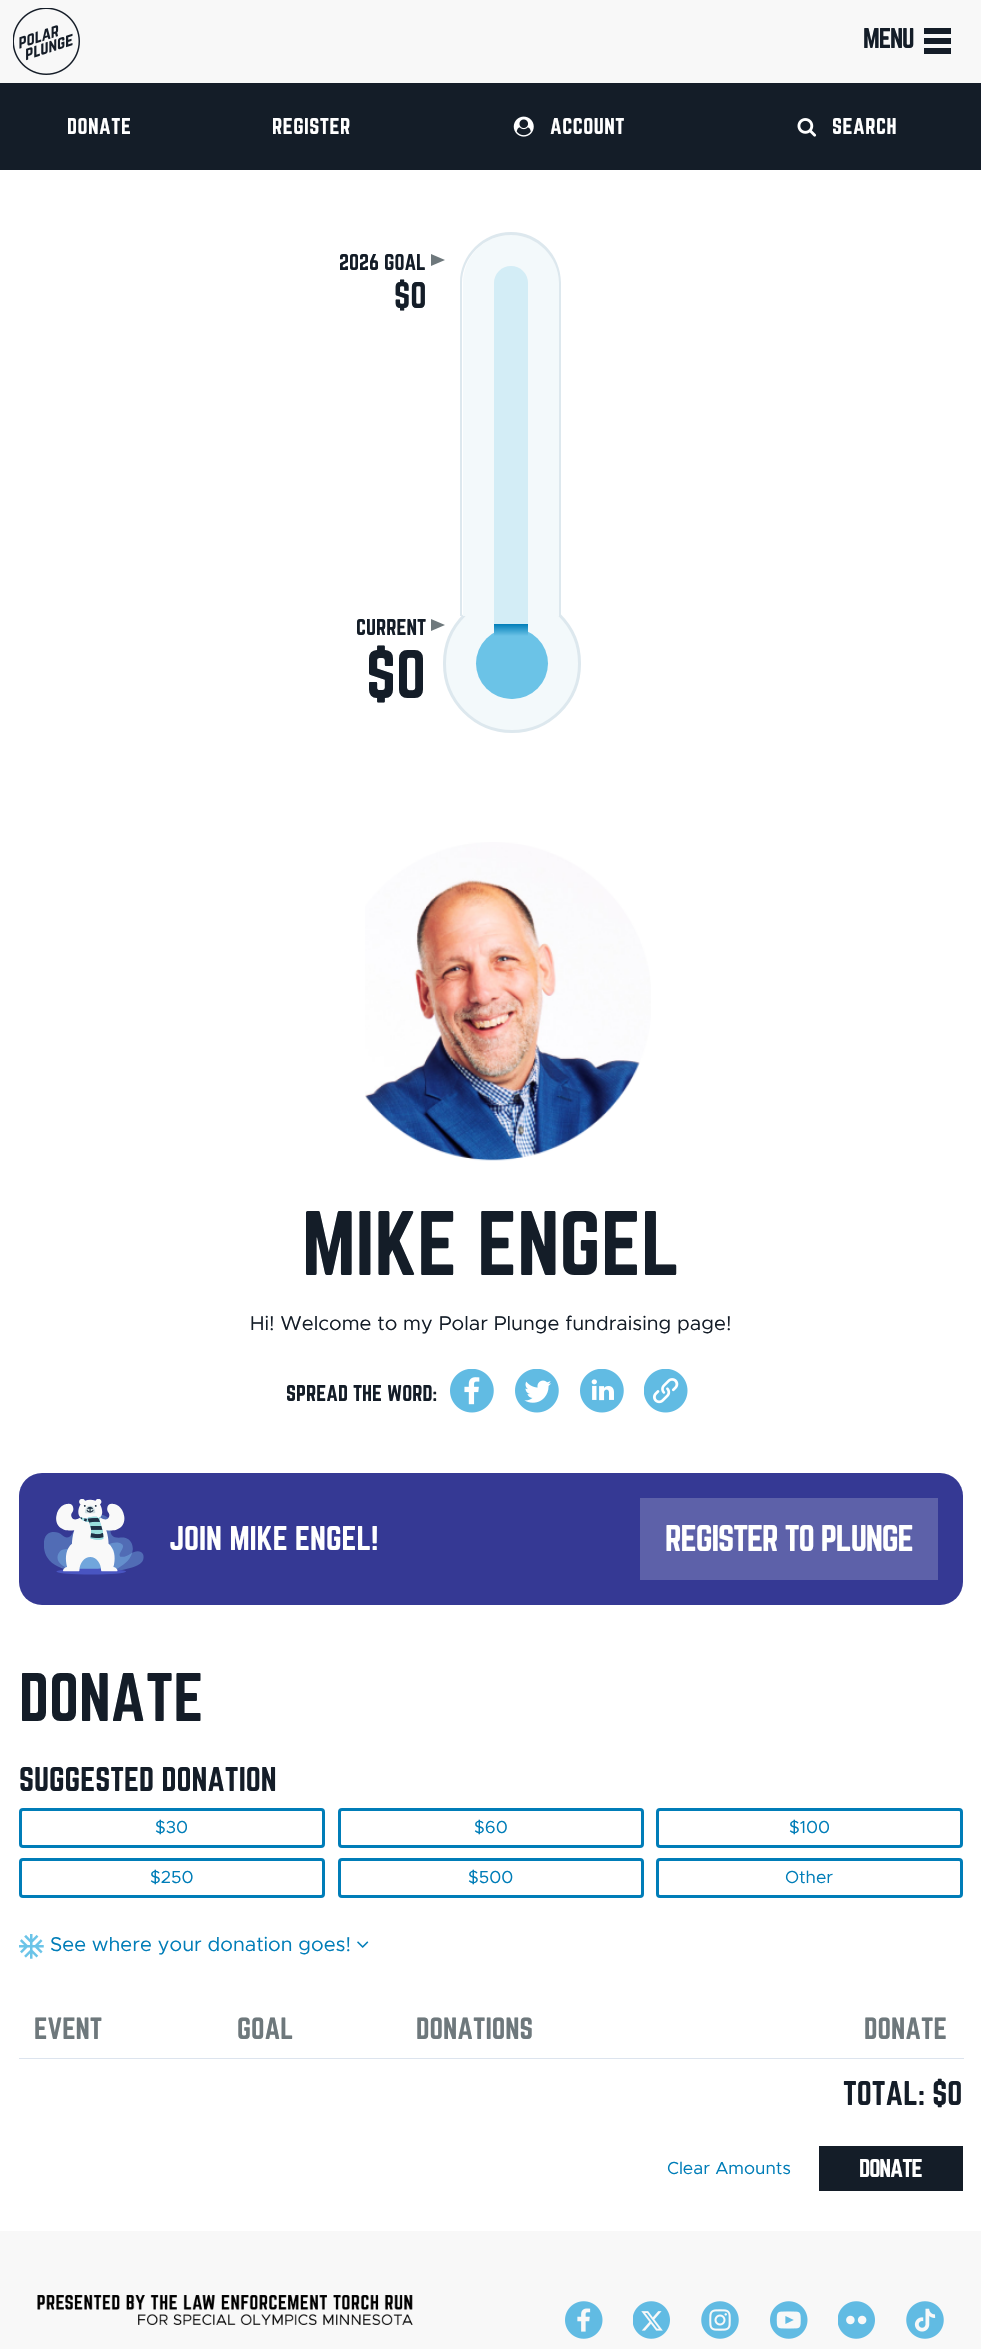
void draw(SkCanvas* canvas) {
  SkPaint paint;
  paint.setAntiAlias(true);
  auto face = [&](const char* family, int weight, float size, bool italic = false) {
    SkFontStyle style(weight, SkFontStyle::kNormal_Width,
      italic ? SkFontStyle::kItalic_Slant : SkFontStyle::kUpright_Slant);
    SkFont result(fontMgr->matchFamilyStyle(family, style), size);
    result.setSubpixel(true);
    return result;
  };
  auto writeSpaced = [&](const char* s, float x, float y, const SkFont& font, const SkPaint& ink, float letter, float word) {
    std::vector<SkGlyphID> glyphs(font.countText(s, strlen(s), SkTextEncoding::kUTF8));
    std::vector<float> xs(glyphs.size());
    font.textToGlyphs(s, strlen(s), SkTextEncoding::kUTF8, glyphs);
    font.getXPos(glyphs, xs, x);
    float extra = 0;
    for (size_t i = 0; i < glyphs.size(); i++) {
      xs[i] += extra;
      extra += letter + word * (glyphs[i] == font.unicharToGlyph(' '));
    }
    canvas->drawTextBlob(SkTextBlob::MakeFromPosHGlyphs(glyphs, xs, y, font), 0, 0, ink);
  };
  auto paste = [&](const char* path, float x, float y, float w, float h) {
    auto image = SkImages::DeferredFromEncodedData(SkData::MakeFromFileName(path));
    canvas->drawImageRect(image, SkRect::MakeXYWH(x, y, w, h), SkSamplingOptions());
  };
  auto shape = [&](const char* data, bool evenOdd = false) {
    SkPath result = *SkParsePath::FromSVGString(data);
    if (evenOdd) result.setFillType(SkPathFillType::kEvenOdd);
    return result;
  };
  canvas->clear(0xffffffff);
  paint.setColor(0xfff8f8f8);
  canvas->drawRect(SkRect::MakeXYWH(0, 0, 981, 83), paint);
  paste("img/1.png", 13, 8, 67, 67);
  paint.setStroke(true);
  paint.setStrokeWidth(6.2f);
  paint.setColor(0xff141d28);
  canvas->drawPath(shape("M924 31H951M924 41H951M924 51H951"), paint);
  paint.setStroke(false);
  canvas->drawRect(SkRect::MakeXYWH(0, 83, 981, 87), paint);
  paste("img/2.png", 513, 116, 21, 21);
  paste("img/3.png", 797, 118, 20, 19);
  paint.setColor(0xff6e787c);
  canvas->drawPath(shape("M431 266V254L445 260Z"), paint);
  paint.setColor(0xfff3f9fb);
  canvas->drawRoundRect(SkRect::MakeXYWH(444.5f, 595.5f, 135, 136), 67.5f, 67.5f, paint);
  paint.setStroke(true);
  paint.setStrokeWidth(3);
  paint.setColor(0xffdde8ee);
  canvas->drawRoundRect(SkRect::MakeXYWH(444.5f, 595.5f, 135, 136), 67.5f, 67.5f, paint);
  paint.setStroke(false);
  paint.setColor(0xfff3f9fb);
  canvas->drawPath(shape("M511 235C537.5 235 559 256.5 559 283V616H463V283C463 256.5 484.5 235 511 235Z"), paint);
  paint.setColor(0xffdde8ee);
  canvas->drawPath(shape("M511 232C539 232 561 255 561 283V616H460V283C460 255 483 232 511 232ZM511 235C537 235 559 257 559 283V616H462V283C462 257 484 235 511 235Z", true), paint);
  paint.setColor(0xffd3edf6);
  canvas->drawRoundRect(SkRect::MakeXYWH(494, 266, 34, 433), 17, 17, paint);
  paint.setColor(0xff6bc3e7);
  canvas->drawRoundRect(SkRect::MakeXYWH(476, 628, 72, 71), 35.5f, 35.5f, paint);
  {
    const SkColor colors[] = {0xff007db8, 0xff6bc3e7};
    const float stops[] = {0, 1};
    const SkPoint ends[] = {{511, 624}, {511, 636}};
    paint.setShader(SkGradientShader::MakeLinear(ends, colors, stops, 2, SkTileMode::kClamp));
    paint.setAlpha(255);
  }
  canvas->drawRect(SkRect::MakeXYWH(494, 624, 34, 12), paint);
  paint.setShader(nullptr);
  paint.setColor(0xff6e787c);
  canvas->drawPath(shape("M431 631V619L445 625Z"), paint);
  paste("img/4.png", 365, 842, 286, 319);
  paste("img/5.png", 450, 1369, 44, 44);
  paste("img/6.png", 515, 1369, 44, 44);
  paste("img/7.png", 580, 1369, 44, 44);
  paste("img/8.png", 644, 1369, 44, 44);
  paint.setColor(0xff353994);
  canvas->drawRoundRect(SkRect::MakeXYWH(19, 1473, 944, 132), 23, 23, paint);
  paste("img/9.png", 44, 1499, 100, 76);
  paint.setColor(0xff5d61a9);
  canvas->drawRect(SkRect::MakeXYWH(640, 1498, 298, 82), paint);
  paint.setStroke(true);
  paint.setColor(0xff007db8);
  canvas->drawRoundRect(SkRect::MakeXYWH(20.5f, 1809.5f, 303, 37), 2.5f, 2.5f, paint);
  canvas->drawRoundRect(SkRect::MakeXYWH(339.5f, 1809.5f, 303, 37), 2.5f, 2.5f, paint);
  canvas->drawRoundRect(SkRect::MakeXYWH(657.5f, 1809.5f, 304, 37), 2.5f, 2.5f, paint);
  canvas->drawRoundRect(SkRect::MakeXYWH(20.5f, 1859.5f, 303, 37), 2.5f, 2.5f, paint);
  canvas->drawRoundRect(SkRect::MakeXYWH(339.5f, 1859.5f, 303, 37), 2.5f, 2.5f, paint);
  canvas->drawRoundRect(SkRect::MakeXYWH(657.5f, 1859.5f, 304, 37), 2.5f, 2.5f, paint);
  paste("img/10.png", 19, 1934, 25, 25);
  paste("img/11.png", 357, 1941, 12, 7);
  paint.setStroke(false);
  {
    const struct { float x, y, w, h; SkColor color; } items[] = {
      {19, 2058, 945, 1, 0xffdce4ee},
      {819, 2146, 144, 45, 0xff141d28},
      {0, 2231, 981, 118, 0xfff8f8f8},
    };
    for (auto [x, y, w, h, color] : items) {
      paint.setColor(color);
      canvas->drawRect(SkRect::MakeXYWH(x, y, w, h), paint);
    }
  }
  paste("img/12.png", 37, 2295, 376, 30);
  paste("img/13.png", 565, 2301, 38, 38);
  paste("img/14.png", 633, 2301, 37, 38);
  paste("img/15.png", 701, 2301, 38, 38);
  paste("img/16.png", 770, 2301, 38, 38);
  paste("img/17.png", 838, 2301, 37, 38);
  paste("img/18.png", 906, 2301, 38, 38);
  auto f0 = face("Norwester", 400, 25);
  paint.setColor(0xff141d28);
  writeSpaced("MENU", 863, 48, f0, paint, -1.1f, 0);
  auto f1 = face("Norwester", 400, 20);
  paint.setColor(0xffffffff);
  {
    const struct { const char* s; float x, y; } items[] = {
      {"DONATE", 67, 134},
      {"REGISTER", 272, 134},
      {"ACCOUNT", 550, 134},
      {"SEARCH", 832, 134},
    };
    for (auto [s, x, y] : items) {
      writeSpaced(s, x, y, f1, paint, 0.5f, 0);
    }
  }
  paint.setColor(0xff141d28);
  canvas->drawString("2026 GOAL", 339, 270, f1, paint);
  auto f2 = face("Norwester", 400, 32.5f);
  canvas->drawString("$0", 394, 308, f2, paint);
  canvas->drawString("CURRENT", 356, 635, f1, paint);
  auto f3 = face("Norwester", 400, 60);
  canvas->drawString("$0", 366, 698, f3, paint);
  auto f4 = face("Norwester", 400, 80);
  canvas->drawString("MIKE ENGEL", 302, 1275, f4, paint);
  auto f5 = face("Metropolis", 400, 20);
  canvas->drawString("Hi! Welcome to my Polar Plunge fundraising page!", 250, 1330, f5, paint);
  canvas->drawString("SPREAD THE WORD:", 286, 1401, f1, paint);
  auto f6 = face("Norwester", 400, 30);
  paint.setColor(0xffffffff);
  canvas->drawString("JOIN MIKE ENGEL!", 169, 1550, f6, paint);
  writeSpaced("REGISTER TO PLUNGE", 665, 1551, f2, paint, -1.1f, 0);
  paint.setColor(0xff141d28);
  canvas->drawString("DONATE", 19, 1721, f3, paint);
  canvas->drawString("SUGGESTED DONATION", 19, 1791, f6, paint);
  auto f7 = face("Metropolis", 400, 17.5f);
  paint.setColor(0xff007db8);
  {
    const struct { const char* s; float x, y; } items[] = {
      {"$30", 155, 1833},
      {"$60", 474, 1833},
      {"$100", 789, 1833},
      {"$250", 150, 1883},
      {"$500", 468, 1883},
      {"Other", 785, 1883},
    };
    for (auto [s, x, y] : items) {
      canvas->drawString(s, x, y, f7, paint);
    }
  }
  canvas->drawString("See where your donation goes!", 50, 1951, f5, paint);
  auto f8 = face("Norwester", 400, 27);
  paint.setColor(0xff6e787c);
  {
    const struct { const char* s; float x, y; } items[] = {
      {"EVENT", 34, 2039},
      {"GOAL", 237, 2039},
      {"DONATIONS", 416, 2039},
      {"DONATE", 864, 2039},
    };
    for (auto [s, x, y] : items) {
      canvas->drawString(s, x, y, f8, paint);
    }
  }
  paint.setColor(0xff141d28);
  canvas->drawString("TOTAL: $0", 843, 2105, f6, paint);
  paint.setColor(0xff007db8);
  canvas->drawString("Clear Amounts", 667, 2174, f7, paint);
  auto f9 = face("Norwester", 400, 22.5f);
  paint.setColor(0xffffffff);
  writeSpaced("DONATE", 859, 2177, f9, paint, -1.1f, 0);
}
